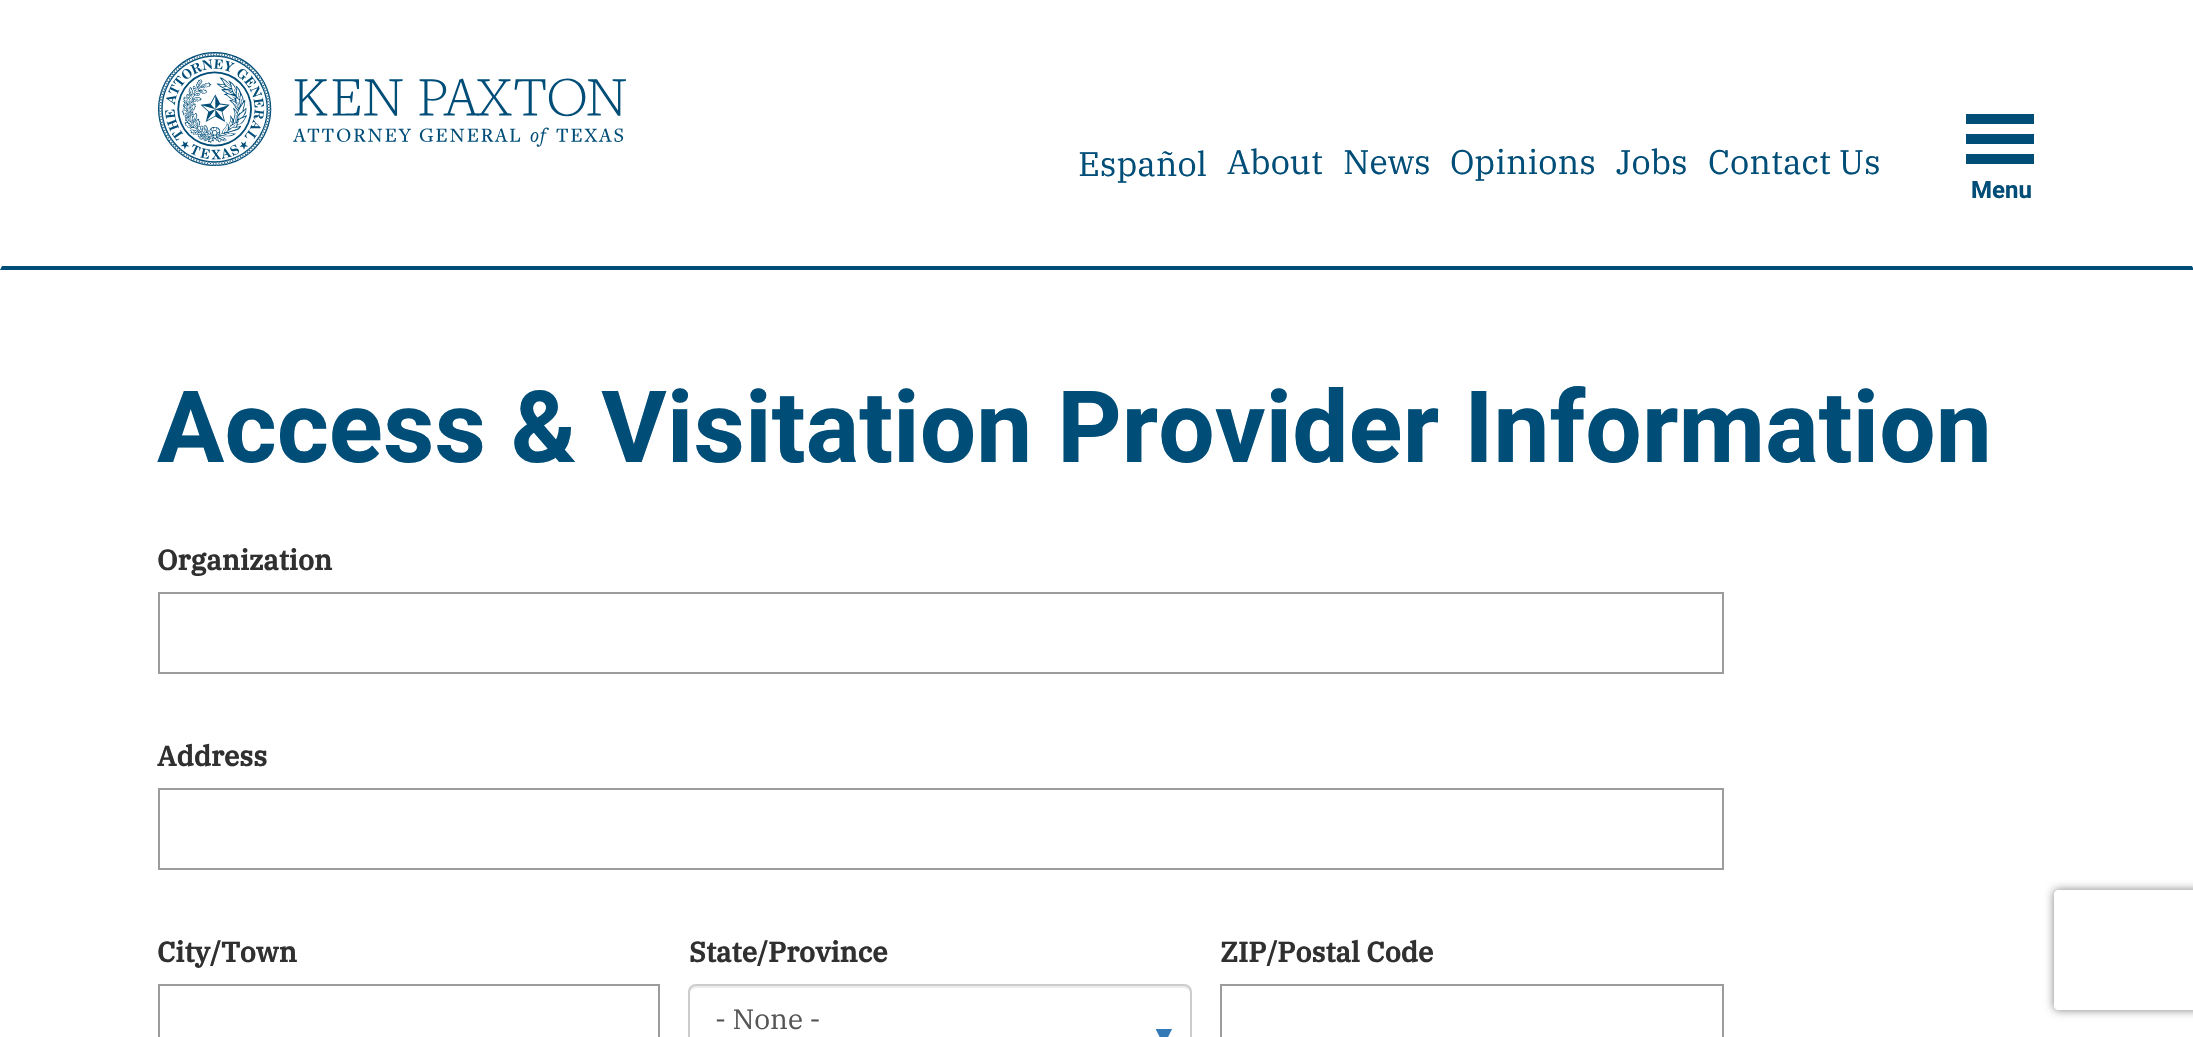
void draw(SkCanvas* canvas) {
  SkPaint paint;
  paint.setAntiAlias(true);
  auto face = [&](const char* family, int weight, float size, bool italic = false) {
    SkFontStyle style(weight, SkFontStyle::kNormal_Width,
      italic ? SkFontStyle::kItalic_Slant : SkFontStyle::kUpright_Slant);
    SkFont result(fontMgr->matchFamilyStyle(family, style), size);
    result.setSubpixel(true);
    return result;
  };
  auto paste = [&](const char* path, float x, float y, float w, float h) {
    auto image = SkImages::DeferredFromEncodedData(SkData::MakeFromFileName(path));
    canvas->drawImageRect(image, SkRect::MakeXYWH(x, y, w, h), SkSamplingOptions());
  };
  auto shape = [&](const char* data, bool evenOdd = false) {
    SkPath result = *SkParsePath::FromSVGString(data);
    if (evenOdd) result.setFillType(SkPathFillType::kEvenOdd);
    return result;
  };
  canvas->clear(0xffffffff);
  paint.setColor(0xff004d78);
  canvas->drawPath(shape("M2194 270H0L2 266H2192Z"), paint);
  paste("img/1.png", 158, 52, 468, 114);
  {
    const struct { float x, y, w, h; SkColor color; } items[] = {
      {1966, 114, 68, 10, 0xff004d78},
      {1966, 134, 68, 10, 0xff004d78},
      {1966, 154, 68, 10, 0xff004d78},
    };
    for (auto [x, y, w, h, color] : items) {
      paint.setColor(color);
      canvas->drawRect(SkRect::MakeXYWH(x, y, w, h), paint);
    }
  }
  paint.setStroke(true);
  paint.setStrokeWidth(2);
  paint.setColor(0xff9c9c9c);
  canvas->drawRect(SkRect::MakeXYWH(159, 593, 1564, 80), paint);
  canvas->drawRect(SkRect::MakeXYWH(159, 789, 1564, 80), paint);
  canvas->drawRect(SkRect::MakeXYWH(159, 985, 500, 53), paint);
  paint.setStroke(false);
  paint.setColor(0xffececec);
  canvas->drawPath(shape("M696 988H1184C1187 988 1190 991 1190 994C1190 990 1189 986 1184 986H696C691 986 690 990 690 994C690 991 693 988 696 988Z"), paint);
  paint.setStroke(true);
  paint.setColor(0xffcccccc);
  canvas->drawRoundRect(SkRect::MakeXYWH(689, 985, 502, 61), 7, 7, paint);
  paint.setColor(0xff9c9c9c);
  canvas->drawRect(SkRect::MakeXYWH(1221, 985, 502, 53), paint);
  canvas->save();
  canvas->clipPath(shape("M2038 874H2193V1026H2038ZM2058 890H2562C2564 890 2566 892 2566 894V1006C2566 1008 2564 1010 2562 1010H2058C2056 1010 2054 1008 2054 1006V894C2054 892 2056 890 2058 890Z", true), true);
  paint.setStroke(false);
  paint.setColor(0xff808080);
  paint.setMaskFilter(SkMaskFilter::MakeBlur(kNormal_SkBlurStyle, 5));
  canvas->drawRoundRect(SkRect::MakeXYWH(2054, 890, 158, 120), 4, 4, paint);
  paint.setMaskFilter(nullptr);
  canvas->restore();
  auto f0 = face("IBM Plex Serif", 400, 34);
  paint.setColor(0xff004d78);
  {
    const struct { const char* s; float x, y; } items[] = {
      {"Español", 1078, 176},
      {"About", 1227, 174},
      {"News", 1343, 174},
      {"Opinions", 1450, 174},
      {"Jobs", 1616, 174},
      {"Contact Us", 1708, 174},
    };
    for (auto [s, x, y] : items) {
      canvas->drawString(s, x, y, f0, paint);
    }
  }
  auto f1 = face("Heebo", 700, 24);
  canvas->drawString("Menu", 1971, 198, f1, paint);
  auto f2 = face("Heebo", 700, 100);
  canvas->drawString("Access & Visitation Provider Information", 157, 462, f2, paint);
  auto f3 = face("IBM Plex Serif", 700, 28);
  paint.setColor(0xff303030);
  {
    const struct { const char* s; float x, y; } items[] = {
      {"Organization", 157, 570},
      {"Address", 157, 766},
      {"City/Town", 157, 962},
      {"State/Province", 689, 962},
    };
    for (auto [s, x, y] : items) {
      canvas->drawString(s, x, y, f3, paint);
    }
  }
  auto f4 = face("IBM Plex Serif", 400, 28);
  paint.setColor(0xff555555);
  canvas->drawString("- None -", 715, 1029, f4, paint);
  auto f5 = face("Liberation Serif", 400, 28);
  paint.setColor(0xff337ab7);
  canvas->drawString("▼", 1150, 1045, f5, paint);
  paint.setColor(0xff303030);
  canvas->drawString("ZIP/Postal Code", 1220, 962, f3, paint);
}
